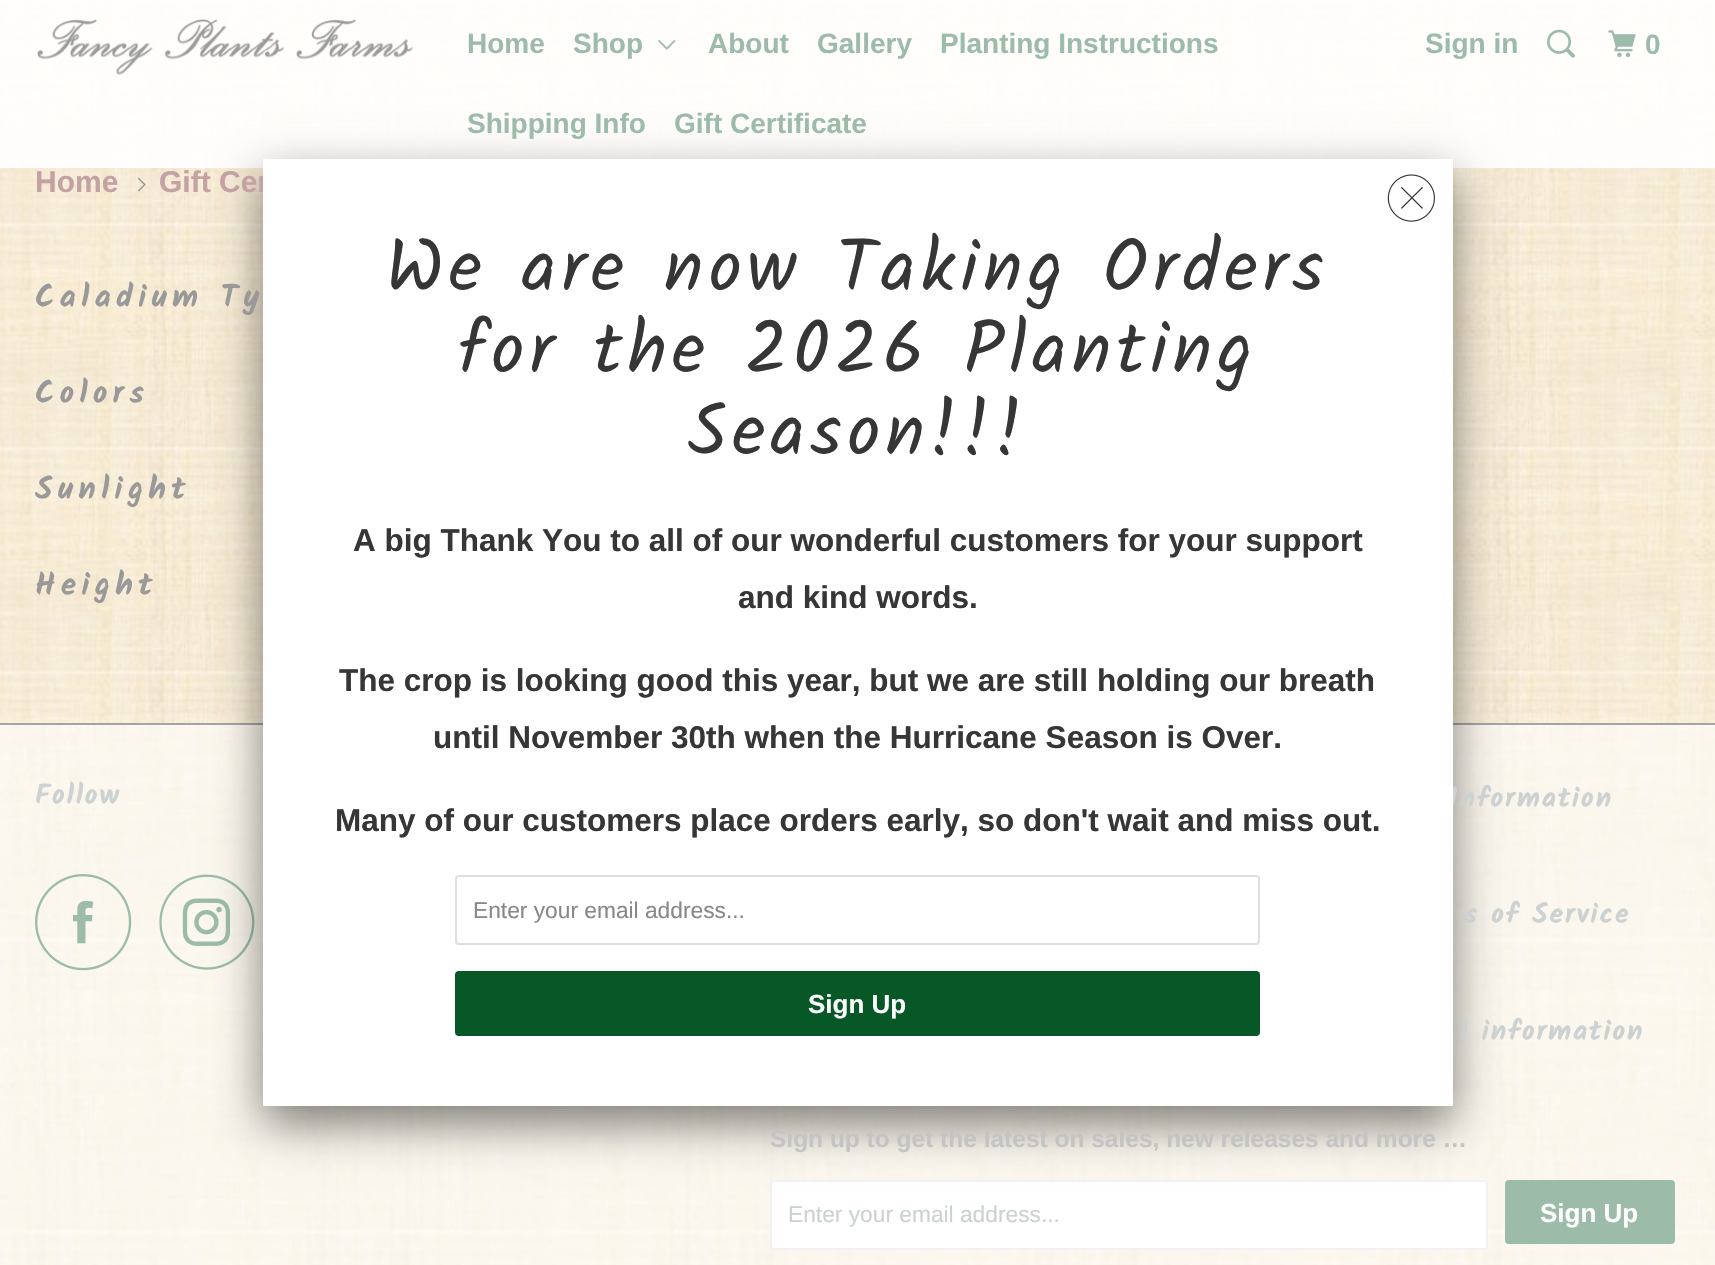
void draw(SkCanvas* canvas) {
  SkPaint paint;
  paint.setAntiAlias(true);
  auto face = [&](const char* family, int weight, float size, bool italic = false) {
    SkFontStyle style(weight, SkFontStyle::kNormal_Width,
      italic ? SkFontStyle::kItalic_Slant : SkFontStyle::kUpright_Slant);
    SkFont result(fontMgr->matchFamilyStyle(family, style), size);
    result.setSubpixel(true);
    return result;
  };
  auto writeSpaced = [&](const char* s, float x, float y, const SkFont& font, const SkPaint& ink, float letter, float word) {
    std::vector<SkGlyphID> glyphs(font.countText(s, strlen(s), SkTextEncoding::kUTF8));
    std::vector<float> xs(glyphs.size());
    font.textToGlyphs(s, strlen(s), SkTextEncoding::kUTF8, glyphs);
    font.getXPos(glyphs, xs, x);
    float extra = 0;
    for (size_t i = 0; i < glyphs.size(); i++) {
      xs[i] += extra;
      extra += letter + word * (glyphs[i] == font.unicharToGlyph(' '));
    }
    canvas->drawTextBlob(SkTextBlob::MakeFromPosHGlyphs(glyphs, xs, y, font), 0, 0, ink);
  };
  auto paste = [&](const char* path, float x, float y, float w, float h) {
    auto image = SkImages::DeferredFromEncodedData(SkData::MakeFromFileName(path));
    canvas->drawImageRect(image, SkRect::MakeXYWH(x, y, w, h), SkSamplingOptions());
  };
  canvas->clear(0xffffffff);
  paste("img/1.png", 0, 0, 1715, 723);
  paint.setColor(0xe6ffffff);
  canvas->drawRect(SkRect::MakeXYWH(0, 0, 1715, 168), paint);
  paste("img/2.png", 37, 19, 376, 56);
  paste("img/3.png", 658, 39, 18, 11);
  paste("img/4.png", 1547, 29, 28, 29);
  paste("img/5.png", 1608, 30, 28, 28);
  paste("img/6.png", 137, 177, 9, 15);
  paste("img/7.png", 0, 722, 1715, 543);
  paint.setColor(0xffa4a5a7);
  canvas->drawRect(SkRect::MakeXYWH(0, 723, 1715, 2), paint);
  paste("img/8.png", 35, 874, 97, 97);
  paste("img/9.png", 159, 874, 96, 96);
  paint.setColor(0xffffffff);
  canvas->drawRoundRect(SkRect::MakeXYWH(771, 1181, 716, 68), 3, 3, paint);
  paint.setStroke(true);
  paint.setStrokeWidth(2);
  paint.setColor(0xfff2f2f2);
  canvas->drawRoundRect(SkRect::MakeXYWH(771, 1181, 716, 68), 3, 3, paint);
  paint.setStroke(false);
  paint.setColor(0xff9cbca9);
  canvas->drawRoundRect(SkRect::MakeXYWH(1505, 1180, 170, 64), 4, 4, paint);
  paint.setColor(0x80000000);
  paint.setMaskFilter(SkMaskFilter::MakeBlur(kNormal_SkBlurStyle, 22));
  canvas->drawRect(SkRect::MakeXYWH(263, 177, 1190, 947), paint);
  paint.setMaskFilter(nullptr);
  auto f0 = face("Liberation Sans", 700, 28);
  paint.setColor(0xff9cbca9);
  {
    const struct { const char* s; float x, y; } items[] = {
      {"Home", 467, 53},
      {"Shop", 573, 53},
      {"About", 708, 53},
      {"Gallery", 817, 53},
      {"Planting Instructions", 940, 53},
      {"Shipping Info", 467, 133},
      {"Gift Certificate", 674, 133},
      {"Sign in", 1425, 53},
      {"0", 1645, 54},
    };
    for (auto [s, x, y] : items) {
      canvas->drawString(s, x, y, f0, paint);
    }
  }
  auto f1 = face("Liberation Sans", 700, 30);
  paint.setColor(0xffc4a1a3);
  canvas->drawString("Home", 35, 192, f1, paint);
  canvas->drawString("Gift Cer", 159, 192, f1, paint);
  auto f2 = face("Kalam", 700, 31.5f);
  paint.setColor(0xff999999);
  {
    const struct { const char* s; float x, y; } items[] = {
      {"Caladium Ty", 35, 307},
      {"Colors", 35, 403},
      {"Sunlight", 35, 499},
      {"Height", 35, 595},
    };
    for (auto [s, x, y] : items) {
      writeSpaced(s, x, y, f2, paint, 5.25f, 0);
    }
  }
  auto f3 = face("Kalam", 700, 28);
  paint.setColor(0xffccd1d1);
  {
    const struct { const char* s; float x, y; } items[] = {
      {"Follow", 35, 804},
      {"Information", 1449, 807},
      {"s of Service", 1464, 923},
      {"l information", 1460, 1040},
    };
    for (auto [s, x, y] : items) {
      writeSpaced(s, x, y, f3, paint, 1.75f, 0);
    }
  }
  auto f4 = face("Liberation Sans", 700, 24.5f);
  paint.setColor(0xffc4c4c4);
  canvas->drawString("Sign up to get the latest on sales, new releases and more …", 770, 1147, f4, paint);
  auto f5 = face("Liberation Sans", 400, 22.75f);
  paint.setColor(0xffccd1d1);
  canvas->drawString("Enter your email address...", 788, 1222, f5, paint);
  auto f6 = face("Liberation Sans", 700, 26);
  paint.setColor(0xffffffff);
  canvas->drawString("Sign Up", 1540, 1222, f6, paint);
  canvas->drawRect(SkRect::MakeXYWH(263, 159, 1190, 947), paint);
  paste("img/10.png", 1387, 174, 48, 48);
  auto f7 = face("Kalam", 400, 73.5f);
  paint.setColor(0xff363636);
  {
    const struct { const char* s; float x, y; } items[] = {
      {"We are now Taking Orders", 386, 291},
      {"for the 2026 Planting", 458, 373},
      {"Season!!!", 688, 455},
    };
    for (auto [s, x, y] : items) {
      writeSpaced(s, x, y, f7, paint, 5.25f, 0);
    }
  }
  auto f8 = face("Liberation Sans", 700, 31.5f);
  {
    const struct { const char* s; float x, y; } items[] = {
      {"A big Thank You to all of our wonderful customers for your support", 353, 551},
      {"and kind words.", 738, 608},
      {"The crop is looking good this year, but we are still holding our breath", 339, 691},
      {"until November 30th when the Hurricane Season is Over.", 433, 748},
      {"Many of our customers place orders early, so don't wait and miss out.", 335, 831},
    };
    for (auto [s, x, y] : items) {
      canvas->drawString(s, x, y, f8, paint);
    }
  }
  paint.setStroke(true);
  paint.setColor(0xffdfdfdf);
  canvas->drawRoundRect(SkRect::MakeXYWH(456, 876, 803, 68), 3, 3, paint);
  paint.setStroke(false);
  paint.setColor(0xff888888);
  canvas->drawString("Enter your email address...", 473, 918, f5, paint);
  paint.setColor(0xff075727);
  canvas->drawRoundRect(SkRect::MakeXYWH(455, 971, 805, 65), 4, 4, paint);
  paint.setColor(0xffffffff);
  canvas->drawString("Sign Up", 808, 1013, f6, paint);
}
